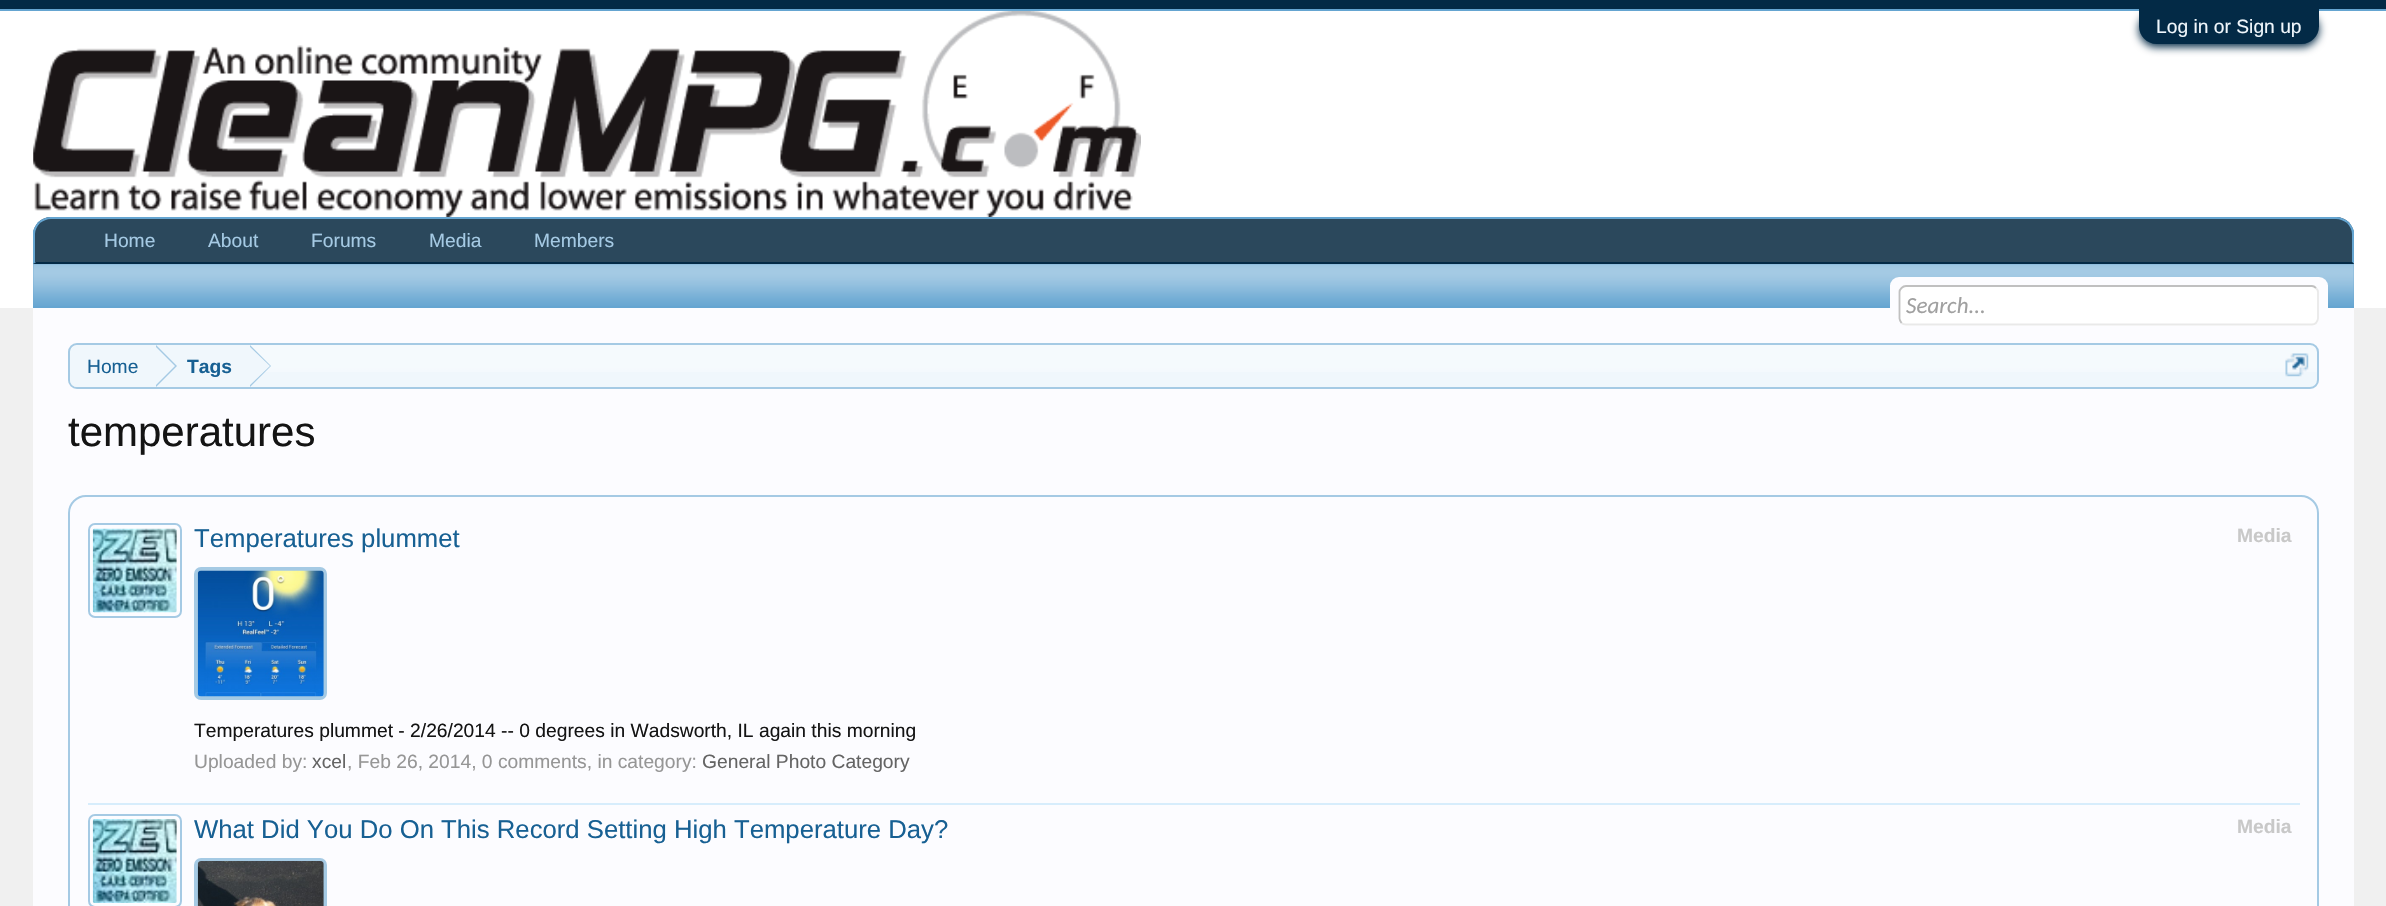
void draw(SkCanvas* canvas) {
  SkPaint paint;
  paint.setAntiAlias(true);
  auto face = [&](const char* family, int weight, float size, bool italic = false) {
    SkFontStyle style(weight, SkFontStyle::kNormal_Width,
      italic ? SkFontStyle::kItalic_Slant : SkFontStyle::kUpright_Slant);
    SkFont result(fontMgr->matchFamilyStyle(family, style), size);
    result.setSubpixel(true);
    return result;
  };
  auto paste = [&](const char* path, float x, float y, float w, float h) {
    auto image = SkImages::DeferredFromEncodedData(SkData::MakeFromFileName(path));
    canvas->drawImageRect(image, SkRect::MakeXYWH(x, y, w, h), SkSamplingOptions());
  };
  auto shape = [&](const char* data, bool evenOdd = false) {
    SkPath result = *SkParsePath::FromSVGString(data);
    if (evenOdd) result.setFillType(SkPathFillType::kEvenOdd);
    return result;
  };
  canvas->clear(0xfff0f0f0);
  {
    const struct { float x, y, w, h; SkColor color; } items[] = {
      {0, 0, 2386, 9, 0xff032a46},
      {0, 9, 2386, 2, 0xff65a5d1},
      {0, 11, 2386, 297, 0xffffffff},
    };
    for (auto [x, y, w, h, color] : items) {
      paint.setColor(color);
      canvas->drawRect(SkRect::MakeXYWH(x, y, w, h), paint);
    }
  }
  paint.setColor(0xff032a46);
  paint.setMaskFilter(SkMaskFilter::MakeBlur(kNormal_SkBlurStyle, 4.5f));
  canvas->drawRoundRect(SkRect::MakeXYWH(2139, 12, 180, 35), 17.5f, 17.5f, paint);
  paint.setMaskFilter(nullptr);
  canvas->drawPath(shape("M2139 9H2319V26.5C2319 36 2311 44 2301.5 44H2156.5C2147 44 2139 36 2139 26.5Z"), paint);
  paste("img/1.png", 33, 11, 1108, 206);
  paint.setColor(0xff2b485c);
  canvas->drawPath(shape("M51 217H2336C2346 217 2354 225 2354 235V264H33V235C33 225 41 217 51 217Z"), paint);
  paint.setColor(0xff65a5d1);
  canvas->drawPath(shape("M51 217C46 217 42 219 38 222L40 223C43 221 47 219 51 219H2336C2340 219 2344 221 2347 223L2349 222C2345 219 2341 217 2336 217Z"), paint);
  canvas->drawPath(shape("M2354 264L2352 262V234C2352 230 2350 226 2347 223L2349 222C2351 225 2353 228 2354 231Z"), paint);
  paint.setColor(0xff032a46);
  canvas->drawPath(shape("M2354 264H34L36 262H2352Z"), paint);
  paint.setColor(0xff65a5d1);
  canvas->drawPath(shape("M33 231C34 228 36 225 38 222L40 223C37 226 35 230 35 234V262H36L33 264Z"), paint);
  canvas->drawRect(SkRect::MakeXYWH(33, 264, 2321, 44), paint);
  paste("img/2.png", 33, 264, 2321, 42);
  paint.setColor(0xfffcfcff);
  canvas->drawRect(SkRect::MakeXYWH(33, 308, 2321, 598), paint);
  canvas->drawRoundRect(SkRect::MakeXYWH(1890, 277, 438, 49), 9, 9, paint);
  canvas->drawRect(SkRect::MakeXYWH(1890, 285, 438, 1), paint);
  paint.setColor(0xffffffff);
  canvas->drawRoundRect(SkRect::MakeXYWH(1899, 285, 420, 41), 7, 7, paint);
  paint.setStroke(true);
  paint.setStrokeWidth(1.8f);
  paint.setColor(0xffe9e9e9);
  canvas->drawPath(shape("M2316 288C2317 289 2318 290.5 2318 292V318.5C2318 320 2317 321.5 2316 323C2315 324 2313.5 324.5 2312 324.5H1906C1904 324.5 1902.5 324 1901.5 323"), paint);
  paint.setColor(0xffc0c0c0);
  canvas->drawPath(shape("M1901.5 323C1900.5 321.5 1899.5 320 1899.5 318.5V292C1899.5 290.5 1900.5 289 1901.5 288C1902.5 287 1904 286 1906 286H2312C2313.5 286 2315 287 2316 288"), paint);
  paint.setStroke(false);
  paint.setColor(0xfff0f7fc);
  canvas->drawRoundRect(SkRect::MakeXYWH(68, 343, 2251, 46), 9, 9, paint);
  paste("img/3.png", 69, 345, 2249, 27);
  paint.setStroke(true);
  paint.setStrokeWidth(2);
  paint.setColor(0xffa5cae4);
  canvas->drawRoundRect(SkRect::MakeXYWH(69, 344, 2249, 44), 8, 8, paint);
  canvas->save();
  canvas->clipPath(shape("M77 345H2310C2314 345 2317 348 2317 352V380C2317 384 2314 387 2310 387H77C73 387 70 384 70 380V352C70 348 73 345 77 345Z"), true);
  paint.setStroke(false);
  paint.setColor(0xfff0f7fc);
  canvas->drawPath(shape("M79 345H156V389H79C74 389 70 385 70 380V354C70 349 74 345 79 345Z"), paint);
  canvas->restore();
  canvas->drawRect(SkRect::MakeXYWH(156, 345, 94, 27), paint);
  paint.setColor(0xffa5cae4);
  canvas->drawPath(shape("M156 387V345L177 366Z"), paint);
  paint.setColor(0xfff0f7fc);
  canvas->drawPath(shape("M154 387V345L175 366Z"), paint);
  paint.setColor(0xffa5cae4);
  canvas->drawPath(shape("M250 387V345L271 366Z"), paint);
  paint.setColor(0xfff0f7fc);
  canvas->drawPath(shape("M248 387V345L270 366Z"), paint);
  paste("img/4.png", 2285, 353, 24, 24);
  paint.setStroke(true);
  paint.setColor(0xffa5cae4);
  canvas->drawRoundRect(SkRect::MakeXYWH(69, 496, 2249, 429), 17, 17, paint);
  paint.setStroke(false);
  paint.setColor(0xffd7edfc);
  canvas->drawRect(SkRect::MakeXYWH(88, 803, 2212, 2), paint);
  paint.setStroke(true);
  paint.setColor(0xffa5cae4);
  canvas->drawRoundRect(SkRect::MakeXYWH(89, 524, 92, 93), 6, 6, paint);
  paste("img/5.png", 92, 528, 85, 85);
  paint.setStrokeWidth(4);
  canvas->drawRoundRect(SkRect::MakeXYWH(196, 569, 129, 129), 5, 5, paint);
  paste("img/6.png", 197, 570, 127, 127);
  paint.setStrokeWidth(2);
  canvas->drawRoundRect(SkRect::MakeXYWH(89, 815, 92, 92), 6, 6, paint);
  paste("img/7.png", 92, 819, 85, 84);
  paint.setStrokeWidth(4);
  canvas->drawRoundRect(SkRect::MakeXYWH(196, 860, 129, 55), 5, 5, paint);
  paste("img/8.png", 197, 861, 127, 45);
  auto f0 = face("Liberation Sans", 400, 19.25f);
  paint.setStroke(false);
  paint.setColor(0xfff0f7fc);
  canvas->drawString("Log in or Sign up", 2156, 33, f0, paint);
  paint.setColor(0xffa5cae4);
  {
    const struct { const char* s; float x, y; } items[] = {
      {"Home", 104, 247},
      {"About", 208, 247},
      {"Forums", 311, 247},
      {"Media", 429, 247},
      {"Members", 534, 247},
    };
    for (auto [s, x, y] : items) {
      canvas->drawString(s, x, y, f0, paint);
    }
  }
  auto f1 = face("Carlito", 400, 23, true);
  paint.setColor(0xffa0a0a0);
  canvas->drawString("Search...", 1906, 313, f1, paint);
  paint.setColor(0xff176093);
  canvas->drawString("Home", 87, 373, f0, paint);
  auto f2 = face("Liberation Sans", 700, 19.25f);
  canvas->drawString("Tags", 187, 373, f2, paint);
  auto f3 = face("Liberation Sans", 400, 42);
  paint.setColor(0xff141414);
  canvas->drawString("temperatures", 68, 446, f3, paint);
  auto f4 = face("Liberation Sans", 400, 25.7f);
  paint.setColor(0xff176093);
  canvas->drawString("Temperatures plummet", 194, 547, f4, paint);
  paint.setColor(0xffc8c8c8);
  canvas->drawString("Media", 2237, 542, f2, paint);
  paint.setColor(0xff141414);
  canvas->drawString("Temperatures plummet - 2/26/2014 -- 0 degrees in Wadsworth, IL again this morning", 194, 737, f0, paint);
  paint.setColor(0xff969696);
  canvas->drawString("Uploaded by:", 194, 768, f0, paint);
  paint.setColor(0xff646464);
  canvas->drawString("xcel", 312, 768, f0, paint);
  paint.setColor(0xff969696);
  canvas->drawString(", Feb 26, 2014, 0 comments, in category:", 347, 768, f0, paint);
  paint.setColor(0xff646464);
  canvas->drawString("General Photo Category", 702, 768, f0, paint);
  paint.setColor(0xff176093);
  canvas->drawString("What Did You Do On This Record Setting High Temperature Day?", 194, 838, f4, paint);
  paint.setColor(0xffc8c8c8);
  canvas->drawString("Media", 2237, 833, f2, paint);
}
